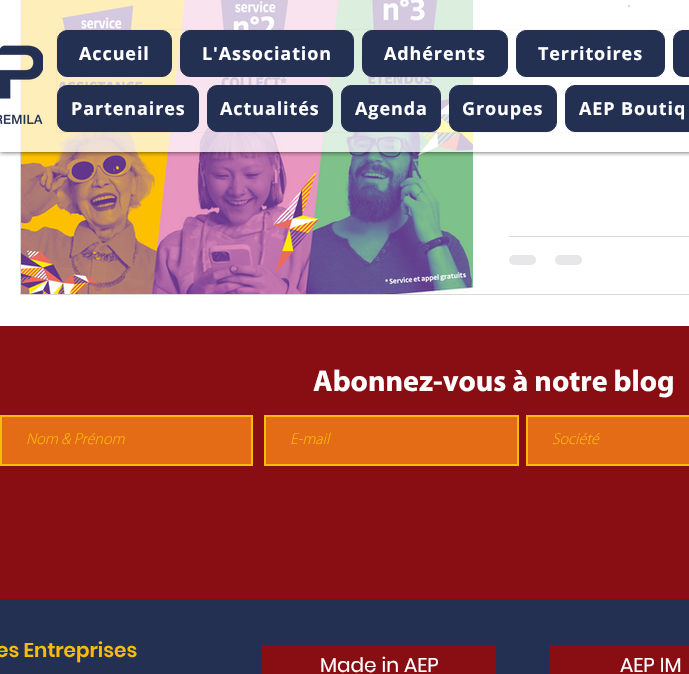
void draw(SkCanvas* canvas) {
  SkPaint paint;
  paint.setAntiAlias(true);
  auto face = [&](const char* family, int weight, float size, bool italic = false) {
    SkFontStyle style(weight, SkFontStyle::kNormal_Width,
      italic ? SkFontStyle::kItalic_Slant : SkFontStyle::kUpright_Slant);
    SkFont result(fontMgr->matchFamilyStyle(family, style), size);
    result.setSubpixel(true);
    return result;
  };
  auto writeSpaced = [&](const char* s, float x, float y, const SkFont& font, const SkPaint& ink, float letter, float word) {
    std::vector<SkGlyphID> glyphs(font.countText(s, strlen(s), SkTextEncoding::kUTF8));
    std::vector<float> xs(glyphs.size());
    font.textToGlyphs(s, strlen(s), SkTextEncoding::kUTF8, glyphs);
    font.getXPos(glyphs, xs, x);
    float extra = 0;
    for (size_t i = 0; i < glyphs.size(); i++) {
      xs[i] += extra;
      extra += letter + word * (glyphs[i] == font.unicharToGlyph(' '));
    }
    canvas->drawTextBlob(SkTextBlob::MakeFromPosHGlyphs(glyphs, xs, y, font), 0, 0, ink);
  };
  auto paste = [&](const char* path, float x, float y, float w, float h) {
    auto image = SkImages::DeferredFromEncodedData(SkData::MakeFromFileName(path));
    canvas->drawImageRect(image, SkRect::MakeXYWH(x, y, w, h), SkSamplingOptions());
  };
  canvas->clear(0xffffffff);
  paint.setStroke(true);
  paint.setStrokeWidth(1);
  paint.setColor(0xffd9d9d9);
  canvas->drawRect(SkRect::MakeXYWH(20.5f, -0.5f, 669, 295), paint);
  paste("img/2.png", 21, 0, 452, 294);
  paint.setStroke(false);
  paint.setColor(0xff373b4d);
  canvas->drawCircle(629, 6, 1, paint);
  canvas->save();
  canvas->clipRect(SkRect::MakeXYWH(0, 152, 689, 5));
  paint.setColor(0xb3000000);
  paint.setMaskFilter(SkMaskFilter::MakeBlur(kNormal_SkBlurStyle, 2.5f));
  canvas->drawRect(SkRect::MakeXYWH(0, 0, 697, 152), paint);
  paint.setMaskFilter(nullptr);
  canvas->restore();
  paint.setColor(0xbaffffff);
  canvas->drawRect(SkRect::MakeXYWH(20, 0, 610, 152), paint);
  paste("img/1.png", 0, 45, 43, 79);
  paint.setStroke(true);
  paint.setColor(0x0aa61217);
  canvas->drawRect(SkRect::MakeXYWH(56.5f, 29.5f, 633, 103), paint);
  paint.setStroke(false);
  paint.setColor(0xff233052);
  canvas->drawRoundRect(SkRect::MakeXYWH(57.5f, 30.5f, 114, 46), 9.5f, 9.5f, paint);
  paint.setStroke(true);
  canvas->drawRoundRect(SkRect::MakeXYWH(57.5f, 30.5f, 114, 46), 9.5f, 9.5f, paint);
  paint.setStroke(false);
  canvas->drawRoundRect(SkRect::MakeXYWH(180.5f, 30.5f, 173, 46), 9.5f, 9.5f, paint);
  paint.setStroke(true);
  canvas->drawRoundRect(SkRect::MakeXYWH(180.5f, 30.5f, 173, 46), 9.5f, 9.5f, paint);
  paint.setStroke(false);
  canvas->drawRoundRect(SkRect::MakeXYWH(362.5f, 30.5f, 145, 46), 9.5f, 9.5f, paint);
  paint.setStroke(true);
  canvas->drawRoundRect(SkRect::MakeXYWH(362.5f, 30.5f, 145, 46), 9.5f, 9.5f, paint);
  paint.setStroke(false);
  canvas->drawRoundRect(SkRect::MakeXYWH(516.5f, 30.5f, 148, 46), 9.5f, 9.5f, paint);
  paint.setStroke(true);
  canvas->drawRoundRect(SkRect::MakeXYWH(516.5f, 30.5f, 148, 46), 9.5f, 9.5f, paint);
  paint.setStroke(false);
  canvas->drawRoundRect(SkRect::MakeXYWH(673.5f, 30.5f, 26, 46), 9.5f, 9.5f, paint);
  paint.setStroke(true);
  canvas->drawRoundRect(SkRect::MakeXYWH(673.5f, 30.5f, 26, 46), 9.5f, 9.5f, paint);
  paint.setStroke(false);
  canvas->drawRoundRect(SkRect::MakeXYWH(57.5f, 85.5f, 141, 46), 9.5f, 9.5f, paint);
  paint.setStroke(true);
  canvas->drawRoundRect(SkRect::MakeXYWH(57.5f, 85.5f, 141, 46), 9.5f, 9.5f, paint);
  paint.setStroke(false);
  canvas->drawRoundRect(SkRect::MakeXYWH(207.5f, 85.5f, 125, 46), 9.5f, 9.5f, paint);
  paint.setStroke(true);
  canvas->drawRoundRect(SkRect::MakeXYWH(207.5f, 85.5f, 125, 46), 9.5f, 9.5f, paint);
  paint.setStroke(false);
  canvas->drawRoundRect(SkRect::MakeXYWH(341.5f, 85.5f, 99, 46), 9.5f, 9.5f, paint);
  paint.setStroke(true);
  canvas->drawRoundRect(SkRect::MakeXYWH(341.5f, 85.5f, 99, 46), 9.5f, 9.5f, paint);
  paint.setStroke(false);
  canvas->drawRoundRect(SkRect::MakeXYWH(449.5f, 85.5f, 107, 46), 9.5f, 9.5f, paint);
  paint.setStroke(true);
  canvas->drawRoundRect(SkRect::MakeXYWH(449.5f, 85.5f, 107, 46), 9.5f, 9.5f, paint);
  paint.setStroke(false);
  canvas->drawRoundRect(SkRect::MakeXYWH(565.5f, 85.5f, 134, 46), 9.5f, 9.5f, paint);
  paint.setStroke(true);
  canvas->drawRoundRect(SkRect::MakeXYWH(565.5f, 85.5f, 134, 46), 9.5f, 9.5f, paint);
  paint.setStroke(false);
  paint.setColor(0xffd7d8db);
  canvas->drawRect(SkRect::MakeXYWH(509, 236, 180, 1), paint);
  paint.setColor(0xffe7e7ea);
  canvas->drawRoundRect(SkRect::MakeXYWH(509, 255, 27, 10), 5, 5, paint);
  canvas->drawRoundRect(SkRect::MakeXYWH(555, 255, 27, 10), 5, 5, paint);
  paint.setColor(0xff880e13);
  canvas->drawRect(SkRect::MakeXYWH(0, 326, 689, 273), paint);
  paint.setColor(0xffe56c17);
  canvas->drawRect(SkRect::MakeXYWH(1, 416, 251, 49), paint);
  paint.setStroke(true);
  paint.setStrokeWidth(2);
  paint.setColor(0xfffbbc09);
  canvas->drawRect(SkRect::MakeXYWH(1, 416, 251, 49), paint);
  paint.setStroke(false);
  paint.setColor(0xffe56c17);
  canvas->drawRect(SkRect::MakeXYWH(265, 416, 253, 49), paint);
  paint.setStroke(true);
  paint.setColor(0xfffbbc09);
  canvas->drawRect(SkRect::MakeXYWH(265, 416, 253, 49), paint);
  paint.setStroke(false);
  paint.setColor(0xffe56c17);
  canvas->drawRect(SkRect::MakeXYWH(527, 416, 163, 49), paint);
  paint.setStroke(true);
  paint.setColor(0xfffbbc09);
  canvas->drawRect(SkRect::MakeXYWH(527, 416, 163, 49), paint);
  paint.setStroke(false);
  {
    const struct { float x, y, w, h; SkColor color; } items[] = {
      {0, 599, 689, 75, 0xff233052},
      {262, 645, 234, 29, 0xff880e13},
      {550, 645, 139, 29, 0xff880e13},
    };
    for (auto [x, y, w, h, color] : items) {
      paint.setColor(color);
      canvas->drawRect(SkRect::MakeXYWH(x, y, w, h), paint);
    }
  }
  auto f0 = face("Open Sans", 700, 18);
  paint.setColor(0xffffffff);
  {
    const struct { const char* s; float x, y; } items[] = {
      {"Accueil", 79, 60},
      {"L'Association", 202, 60},
      {"Adhérents", 384, 60},
      {"Territoires", 538, 60},
      {"Partenaires", 71, 115},
      {"Actualités", 220, 115},
      {"Agenda", 355, 115},
      {"Groupes", 462, 115},
      {"AEP Boutiq", 579, 115},
    };
    for (auto [s, x, y] : items) {
      writeSpaced(s, x, y, f0, paint, 0.9f, 0);
    }
  }
  auto f1 = face("Myriad", 700, 30);
  canvas->drawString("Abonnez-vous à notre blog", 313, 391, f1, paint);
  auto f2 = face("Myriad", 300, 16, true);
  paint.setColor(0xfffbbc09);
  {
    const struct { const char* s; float x, y; } items[] = {
      {"Nom & Prénom", 26, 444},
      {"E-mail", 290, 444},
      {"Société", 552, 444},
    };
    for (auto [s, x, y] : items) {
      canvas->drawString(s, x, y, f2, paint);
    }
  }
  auto f3 = face("Poppins", 600, 20);
  canvas->drawString("es Entreprises", -4, 657, f3, paint);
  auto f4 = face("Poppins", 400, 20);
  paint.setColor(0xffffffff);
  canvas->drawString("Made in AEP", 320, 672, f4, paint);
  canvas->drawString("AEP IM", 620, 672, f4, paint);
}
